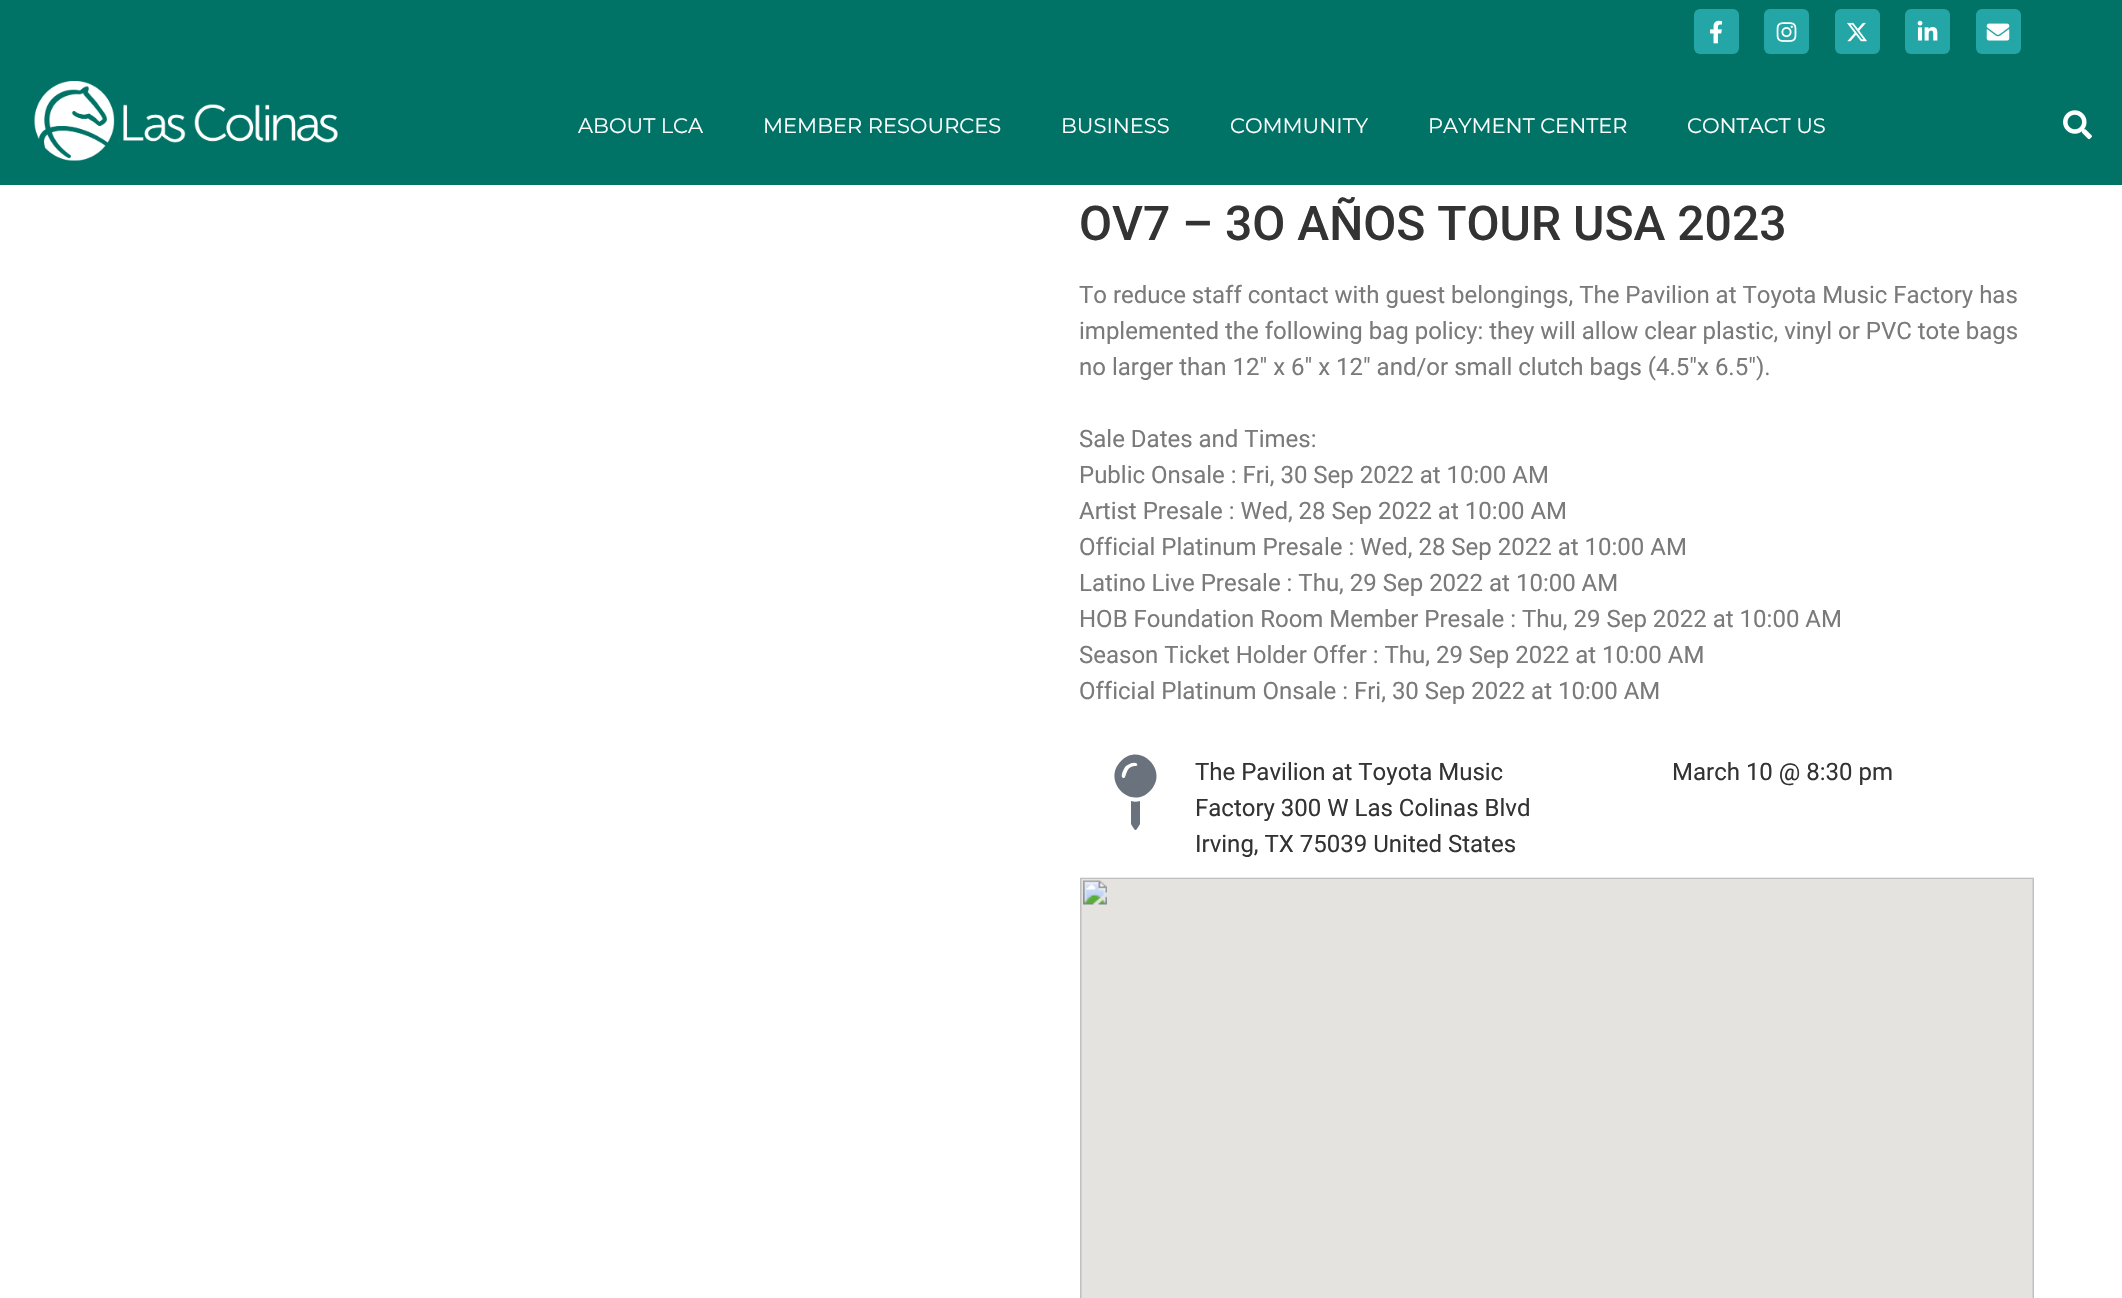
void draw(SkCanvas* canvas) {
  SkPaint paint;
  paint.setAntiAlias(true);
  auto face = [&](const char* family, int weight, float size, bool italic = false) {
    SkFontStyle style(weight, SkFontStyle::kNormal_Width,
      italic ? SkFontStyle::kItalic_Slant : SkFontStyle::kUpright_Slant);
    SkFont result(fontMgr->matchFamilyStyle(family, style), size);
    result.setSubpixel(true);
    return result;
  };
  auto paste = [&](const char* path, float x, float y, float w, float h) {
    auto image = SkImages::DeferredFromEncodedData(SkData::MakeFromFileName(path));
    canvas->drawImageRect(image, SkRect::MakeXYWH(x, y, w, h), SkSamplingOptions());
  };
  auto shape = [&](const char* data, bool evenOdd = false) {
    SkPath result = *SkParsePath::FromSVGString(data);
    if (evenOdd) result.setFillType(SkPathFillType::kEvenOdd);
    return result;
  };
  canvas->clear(0xffffffff);
  paint.setColor(0xff007366);
  canvas->drawRect(SkRect::MakeXYWH(0, 0, 2122, 185), paint);
  paint.setColor(0xff24a6a6);
  canvas->drawRoundRect(SkRect::MakeXYWH(1694, 9, 45, 45), 6, 6, paint);
  paste("img/1.png", 1710, 20, 12, 24);
  canvas->drawRoundRect(SkRect::MakeXYWH(1764, 9, 45, 45), 6, 6, paint);
  paste("img/2.png", 1776, 22, 21, 20);
  canvas->drawRoundRect(SkRect::MakeXYWH(1835, 9, 45, 45), 6, 6, paint);
  paste("img/3.png", 1847, 22, 20, 20);
  canvas->drawRoundRect(SkRect::MakeXYWH(1905, 9, 45, 45), 6, 6, paint);
  paste("img/4.png", 1917, 20, 21, 21);
  canvas->drawRoundRect(SkRect::MakeXYWH(1976, 9, 45, 45), 6, 6, paint);
  paste("img/5.png", 1986, 23, 24, 18);
  paste("img/6.png", 34, 81, 304, 80);
  paste("img/7.png", 2063, 110, 29, 30);
  paint.setColor(0xff69727d);
  canvas->drawPath(shape("M1131 801C1134 802 1137 802 1140 801V824C1135 832 1136 832 1131 824ZM1121 761C1140 741 1170 771 1150 791C1131 811 1101 781 1121 761ZM1136 766C1138 766 1138 762 1133 763C1130 763 1128 765 1126 766C1124 768 1119 778 1124 778C1127 777 1125 766 1136 766Z"), paint);
  paste("img/8.png", 1080, 877, 954, 421);
  auto f0 = face("Montserrat", 400, 21);
  paint.setColor(0xffffffff);
  {
    const struct { const char* s; float x, y; } items[] = {
      {"ABOUT LCA", 578, 133},
      {"MEMBER RESOURCES", 763, 133},
      {"BUSINESS", 1061, 133},
      {"COMMUNITY", 1230, 133},
      {"PAYMENT CENTER", 1428, 133},
      {"CONTACT US", 1687, 133},
    };
    for (auto [s, x, y] : items) {
      canvas->drawString(s, x, y, f0, paint);
    }
  }
  auto f1 = face("Roboto", 500, 48);
  paint.setColor(0xff333333);
  canvas->drawString("OV7 – 3O AÑOS TOUR USA 2023", 1079, 240, f1, paint);
  auto f2 = face("Roboto", 400, 24);
  paint.setColor(0xff7a7a7a);
  {
    const struct { const char* s; float x, y; } items[] = {
      {"To reduce staff contact with guest belongings, The Pavilion at Toyota Music Factory has", 1079, 303},
      {"implemented the following bag policy: they will allow clear plastic, vinyl or PVC tote bags", 1079, 339},
      {"no larger than 12″ x 6″ x 12″ and/or small clutch bags (4.5″x 6.5″).", 1079, 375},
      {"Sale Dates and Times:", 1079, 447},
      {"Public Onsale : Fri, 30 Sep 2022 at 10:00 AM", 1079, 483},
      {"Artist Presale : Wed, 28 Sep 2022 at 10:00 AM", 1079, 519},
      {"Official Platinum Presale : Wed, 28 Sep 2022 at 10:00 AM", 1079, 555},
      {"Latino Live Presale : Thu, 29 Sep 2022 at 10:00 AM", 1079, 591},
      {"HOB Foundation Room Member Presale : Thu, 29 Sep 2022 at 10:00 AM", 1079, 627},
      {"Season Ticket Holder Offer : Thu, 29 Sep 2022 at 10:00 AM", 1079, 663},
      {"Official Platinum Onsale : Fri, 30 Sep 2022 at 10:00 AM", 1079, 699},
    };
    for (auto [s, x, y] : items) {
      canvas->drawString(s, x, y, f2, paint);
    }
  }
  paint.setColor(0xff333333);
  {
    const struct { const char* s; float x, y; } items[] = {
      {"The Pavilion at Toyota Music", 1195, 780},
      {"Factory 300 W Las Colinas Blvd", 1195, 816},
      {"Irving, TX 75039 United States", 1195, 852},
      {"March 10 @ 8:30 pm", 1672, 780},
    };
    for (auto [s, x, y] : items) {
      canvas->drawString(s, x, y, f2, paint);
    }
  }
}
